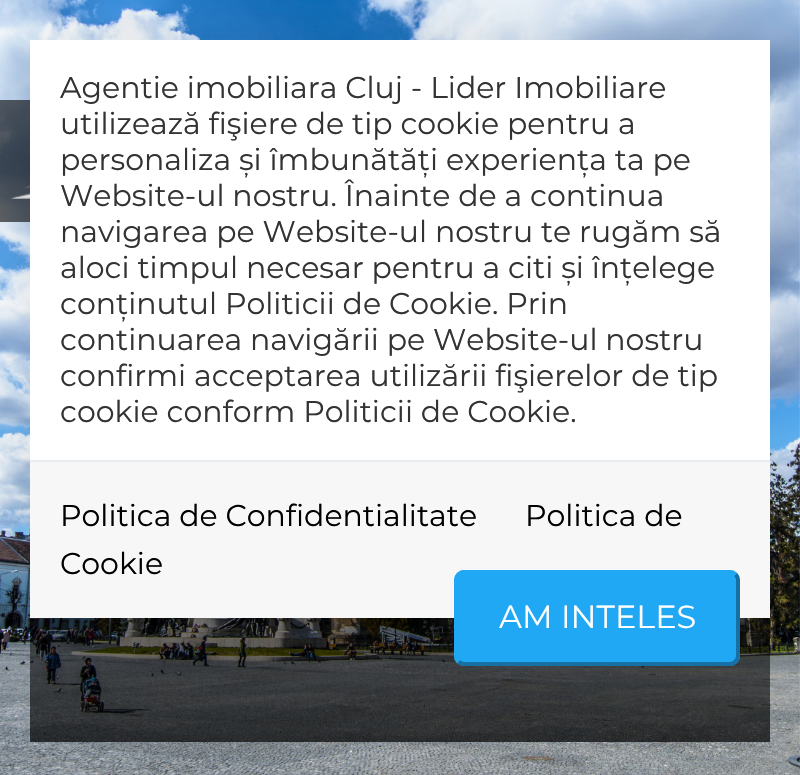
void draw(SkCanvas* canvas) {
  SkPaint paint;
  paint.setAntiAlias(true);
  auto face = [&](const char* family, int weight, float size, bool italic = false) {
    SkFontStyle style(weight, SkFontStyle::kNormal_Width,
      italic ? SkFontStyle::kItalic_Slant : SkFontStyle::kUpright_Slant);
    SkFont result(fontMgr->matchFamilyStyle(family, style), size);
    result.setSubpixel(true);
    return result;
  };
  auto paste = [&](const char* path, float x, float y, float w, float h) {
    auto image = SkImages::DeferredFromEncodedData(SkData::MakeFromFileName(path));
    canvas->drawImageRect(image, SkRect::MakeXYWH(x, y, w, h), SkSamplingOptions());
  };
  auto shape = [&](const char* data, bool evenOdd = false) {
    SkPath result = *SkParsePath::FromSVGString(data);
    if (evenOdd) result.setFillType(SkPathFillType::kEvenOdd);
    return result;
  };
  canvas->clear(0xffffffff);
  paste("img/1.png", 0, 0, 800, 775);
  paste("img/2.png", 0, 100, 30, 122);
  paint.setColor(0x1a000000);
  paint.setMaskFilter(SkMaskFilter::MakeBlur(kNormal_SkBlurStyle, 30));
  canvas->drawRect(SkRect::MakeXYWH(24, 34, 752, 590), paint);
  paint.setMaskFilter(nullptr);
  {
    const struct { float x, y, w, h; SkColor color; } items[] = {
      {30, 40, 740, 420, 0xffffffff},
      {30, 462, 740, 156, 0xfff7f7f7},
      {30, 460, 740, 2, 0xffe9ecef},
    };
    for (auto [x, y, w, h, color] : items) {
      paint.setColor(color);
      canvas->drawRect(SkRect::MakeXYWH(x, y, w, h), paint);
    }
  }
  paint.setColor(0xff21a8f4);
  canvas->drawRoundRect(SkRect::MakeXYWH(454, 570, 286, 96), 10, 10, paint);
  paint.setStroke(true);
  paint.setStrokeWidth(4);
  paint.setColor(0xff1670a3);
  canvas->drawPath(shape("M735.5 574.5C737 576 738 578 738 580V656C738 658 737 660 735.5 661.5C734 663 732 664 730 664H464C462 664 460 663 458.5 661.5"), paint);
  paint.setColor(0xff21a8f4);
  canvas->drawPath(shape("M458.5 661.5C457 660 456 658 456 656V580C456 578 457 576 458.5 574.5C460 573 462 572 464 572H730C732 572 734 573 735.5 574.5"), paint);
  auto f0 = face("Montserrat", 400, 30);
  paint.setStroke(false);
  paint.setColor(0xff333333);
  {
    const struct { const char* s; float x, y; } items[] = {
      {"Agentie imobiliara Cluj - Lider Imobiliare", 60, 98},
      {"utilizează fişiere de tip cookie pentru a", 60, 134},
      {"personaliza și îmbunătăți experiența ta pe", 60, 170},
      {"Website-ul nostru. Înainte de a continua", 60, 206},
      {"navigarea pe Website-ul nostru te rugăm să", 60, 242},
      {"aloci timpul necesar pentru a citi și înțelege", 60, 278},
      {"conținutul Politicii de Cookie. Prin", 60, 314},
      {"continuarea navigării pe Website-ul nostru", 60, 350},
      {"confirmi acceptarea utilizării fişierelor de tip", 60, 386},
      {"cookie conform Politicii de Cookie.", 60, 422},
    };
    for (auto [s, x, y] : items) {
      canvas->drawString(s, x, y, f0, paint);
    }
  }
  paint.setColor(0xff000000);
  {
    const struct { const char* s; float x, y; } items[] = {
      {"Politica de Confidentialitate", 60, 526},
      {"Politica de", 525, 526},
      {"Cookie", 60, 574},
    };
    for (auto [s, x, y] : items) {
      canvas->drawString(s, x, y, f0, paint);
    }
  }
  auto f1 = face("Montserrat", 400, 32);
  paint.setColor(0xffffffff);
  canvas->drawString("AM INTELES", 499, 628, f1, paint);
}
